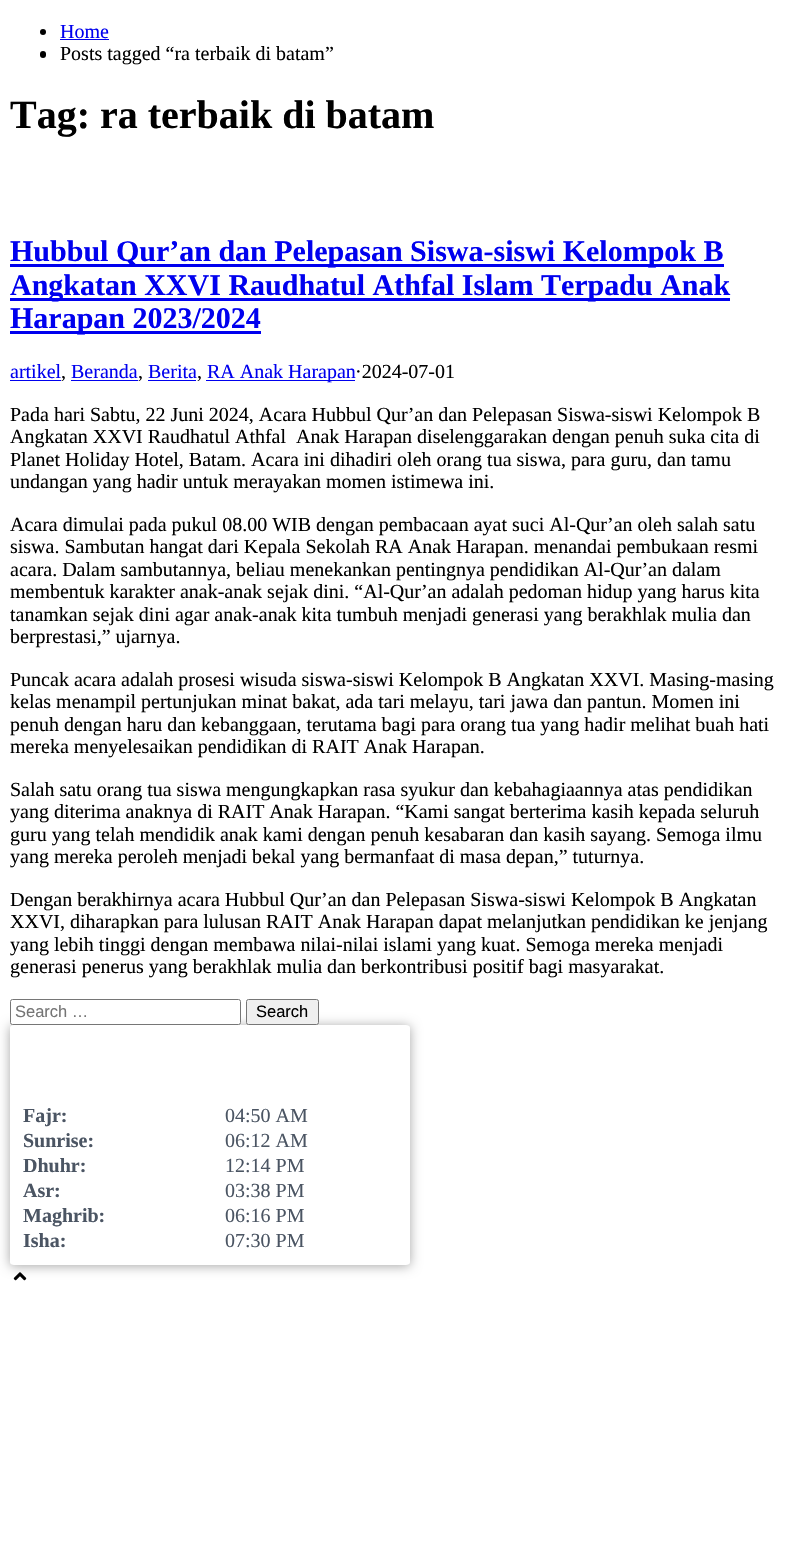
void draw(SkCanvas* canvas) {
  SkPaint paint;
  paint.setAntiAlias(true);
  auto face = [&](const char* family, int weight, float size, bool italic = false) {
    SkFontStyle style(weight, SkFontStyle::kNormal_Width,
      italic ? SkFontStyle::kItalic_Slant : SkFontStyle::kUpright_Slant);
    SkFont result(fontMgr->matchFamilyStyle(family, style), size);
    result.setSubpixel(true);
    return result;
  };
  auto paste = [&](const char* path, float x, float y, float w, float h) {
    auto image = SkImages::DeferredFromEncodedData(SkData::MakeFromFileName(path));
    canvas->drawImageRect(image, SkRect::MakeXYWH(x, y, w, h), SkSamplingOptions());
  };
  auto shape = [&](const char* data, bool evenOdd = false) {
    SkPath result = *SkParsePath::FromSVGString(data);
    if (evenOdd) result.setFillType(SkPathFillType::kEvenOdd);
    return result;
  };
  canvas->clear(0xffffffff);
  paint.setColor(0xff000000);
  canvas->drawCircle(43, 32, 3, paint);
  paint.setColor(0xff0000ee);
  canvas->drawRect(SkRect::MakeXYWH(60, 39, 49, 1), paint);
  paint.setColor(0xff000000);
  canvas->drawRoundRect(SkRect::MakeXYWH(40, 51, 6, 7), 3, 3, paint);
  {
    const struct { float x, y, w, h; SkColor color; } items[] = {
      {10, 264, 714, 3, 0xff0000ee},
      {10, 298, 720, 3, 0xff0000ee},
      {10, 331, 251, 3, 0xff0000ee},
      {10, 380, 51, 1, 0xff0000ee},
      {71, 380, 67, 1, 0xff0000ee},
      {148, 380, 48, 1, 0xff0000ee},
      {206, 380, 149, 1, 0xff0000ee},
    };
    for (auto [x, y, w, h, color] : items) {
      paint.setColor(color);
      canvas->drawRect(SkRect::MakeXYWH(x, y, w, h), paint);
    }
  }
  canvas->save();
  canvas->clipPath(shape("M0 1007H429V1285H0ZM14 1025H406C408 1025 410 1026 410 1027.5V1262.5C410 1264 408 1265 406 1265H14C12 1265 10 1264 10 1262.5V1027.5C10 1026 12 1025 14 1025Z", true), true);
  paint.setColor(0x59000000);
  paint.setMaskFilter(SkMaskFilter::MakeBlur(kNormal_SkBlurStyle, 6));
  canvas->drawRoundRect(SkRect::MakeXYWH(10, 1026, 400, 240), 2.5f, 2.5f, paint);
  paint.setMaskFilter(nullptr);
  canvas->restore();
  paint.setColor(0xffffffff);
  canvas->drawRoundRect(SkRect::MakeXYWH(10.5f, 999.5f, 230, 25), 2, 2, paint);
  paint.setStroke(true);
  paint.setStrokeWidth(1);
  paint.setColor(0xff767676);
  canvas->drawRoundRect(SkRect::MakeXYWH(10.5f, 999.5f, 230, 25), 2, 2, paint);
  paint.setStroke(false);
  paint.setColor(0xffefefef);
  canvas->drawRoundRect(SkRect::MakeXYWH(246.5f, 999.5f, 72, 25), 2, 2, paint);
  paint.setStroke(true);
  paint.setColor(0xff767676);
  canvas->drawRoundRect(SkRect::MakeXYWH(246.5f, 999.5f, 72, 25), 2, 2, paint);
  paste("img/1.png", 13, 1272, 14, 9);
  auto f0 = face("Liberation Serif", 400, 20);
  paint.setStroke(false);
  paint.setColor(0xff0000ee);
  canvas->drawString("Home", 60, 38, f0, paint);
  paint.setColor(0xff000000);
  canvas->drawString("Posts tagged “ra terbaik di batam”", 60, 60, f0, paint);
  auto f1 = face("Liberation Serif", 700, 40);
  canvas->drawString("Tag: ra terbaik di batam", 10, 128, f1, paint);
  auto f2 = face("Liberation Serif", 700, 30);
  paint.setColor(0xff0000ee);
  {
    const struct { const char* s; float x, y; } items[] = {
      {"Hubbul Qur’an dan Pelepasan Siswa-siswi Kelompok B", 10, 261},
      {"Angkatan XXVI Raudhatul Athfal Islam Terpadu Anak", 10, 295},
      {"Harapan 2023/2024", 10, 328},
    };
    for (auto [s, x, y] : items) {
      canvas->drawString(s, x, y, f2, paint);
    }
  }
  canvas->drawString("artikel", 10, 378, f0, paint);
  paint.setColor(0xff000000);
  canvas->drawString(",", 61, 378, f0, paint);
  paint.setColor(0xff0000ee);
  canvas->drawString("Beranda", 71, 378, f0, paint);
  paint.setColor(0xff000000);
  canvas->drawString(",", 138, 378, f0, paint);
  paint.setColor(0xff0000ee);
  canvas->drawString("Berita", 148, 378, f0, paint);
  paint.setColor(0xff000000);
  canvas->drawString(",", 197, 378, f0, paint);
  paint.setColor(0xff0000ee);
  canvas->drawString("RA Anak Harapan", 207, 378, f0, paint);
  paint.setColor(0xff000000);
  {
    const struct { const char* s; float x, y; } items[] = {
      {"·2024-07-01", 355, 378},
      {"Pada hari Sabtu, 22 Juni 2024, Acara Hubbul Qur’an dan Pelepasan Siswa-siswi Kelompok B", 10, 421},
      {"Angkatan XXVI Raudhatul Athfal  Anak Harapan diselenggarakan dengan penuh suka cita di", 10, 443},
      {"Planet Holiday Hotel, Batam. Acara ini dihadiri oleh orang tua siswa, para guru, dan tamu", 10, 466},
      {"undangan yang hadir untuk merayakan momen istimewa ini.", 10, 488},
      {"Acara dimulai pada pukul 08.00 WIB dengan pembacaan ayat suci Al-Qur’an oleh salah satu", 10, 531},
      {"siswa. Sambutan hangat dari Kepala Sekolah RA Anak Harapan. menandai pembukaan resmi", 10, 553},
      {"acara. Dalam sambutannya, beliau menekankan pentingnya pendidikan Al-Qur’an dalam", 10, 576},
      {"membentuk karakter anak-anak sejak dini. “Al-Qur’an adalah pedoman hidup yang harus kita", 10, 598},
      {"tanamkan sejak dini agar anak-anak kita tumbuh menjadi generasi yang berakhlak mulia dan", 10, 621},
      {"berprestasi,” ujarnya.", 10, 643},
      {"Puncak acara adalah prosesi wisuda siswa-siswi Kelompok B Angkatan XXVI. Masing-masing", 10, 686},
      {"kelas menampil pertunjukan minat bakat, ada tari melayu, tari jawa dan pantun. Momen ini", 10, 708},
      {"penuh dengan haru dan kebanggaan, terutama bagi para orang tua yang hadir melihat buah hati", 10, 731},
      {"mereka menyelesaikan pendidikan di RAIT Anak Harapan.", 10, 753},
      {"Salah satu orang tua siswa mengungkapkan rasa syukur dan kebahagiaannya atas pendidikan", 10, 796},
      {"yang diterima anaknya di RAIT Anak Harapan. “Kami sangat berterima kasih kepada seluruh", 10, 818},
      {"guru yang telah mendidik anak kami dengan penuh kesabaran dan kasih sayang. Semoga ilmu", 10, 841},
      {"yang mereka peroleh menjadi bekal yang bermanfaat di masa depan,” tuturnya.", 10, 863},
      {"Dengan berakhirnya acara Hubbul Qur’an dan Pelepasan Siswa-siswi Kelompok B Angkatan", 10, 906},
      {"XXVI, diharapkan para lulusan RAIT Anak Harapan dapat melanjutkan pendidikan ke jenjang", 10, 928},
      {"yang lebih tinggi dengan membawa nilai-nilai islami yang kuat. Semoga mereka menjadi", 10, 951},
      {"generasi penerus yang berakhlak mulia dan berkontribusi positif bagi masyarakat.", 10, 973},
    };
    for (auto [s, x, y] : items) {
      canvas->drawString(s, x, y, f0, paint);
    }
  }
  auto f3 = face("Liberation Sans", 400, 16.5f);
  paint.setColor(0xff757575);
  canvas->drawString("Search …", 15, 1017, f3, paint);
  paint.setColor(0xff000000);
  canvas->drawString("Search", 256, 1017, f3, paint);
  auto f4 = face("Liberation Serif", 700, 20);
  paint.setColor(0xff4b5563);
  canvas->drawString("Fajr:", 23, 1122, f4, paint);
  canvas->drawString("04:50 AM", 225, 1122, f0, paint);
  canvas->drawString("Sunrise:", 23, 1147, f4, paint);
  canvas->drawString("06:12 AM", 225, 1147, f0, paint);
  canvas->drawString("Dhuhr:", 23, 1172, f4, paint);
  canvas->drawString("12:14 PM", 225, 1172, f0, paint);
  canvas->drawString("Asr:", 23, 1197, f4, paint);
  canvas->drawString("03:38 PM", 225, 1197, f0, paint);
  canvas->drawString("Maghrib:", 23, 1222, f4, paint);
  canvas->drawString("06:16 PM", 225, 1222, f0, paint);
  canvas->drawString("Isha:", 23, 1247, f4, paint);
  canvas->drawString("07:30 PM", 225, 1247, f0, paint);
}
